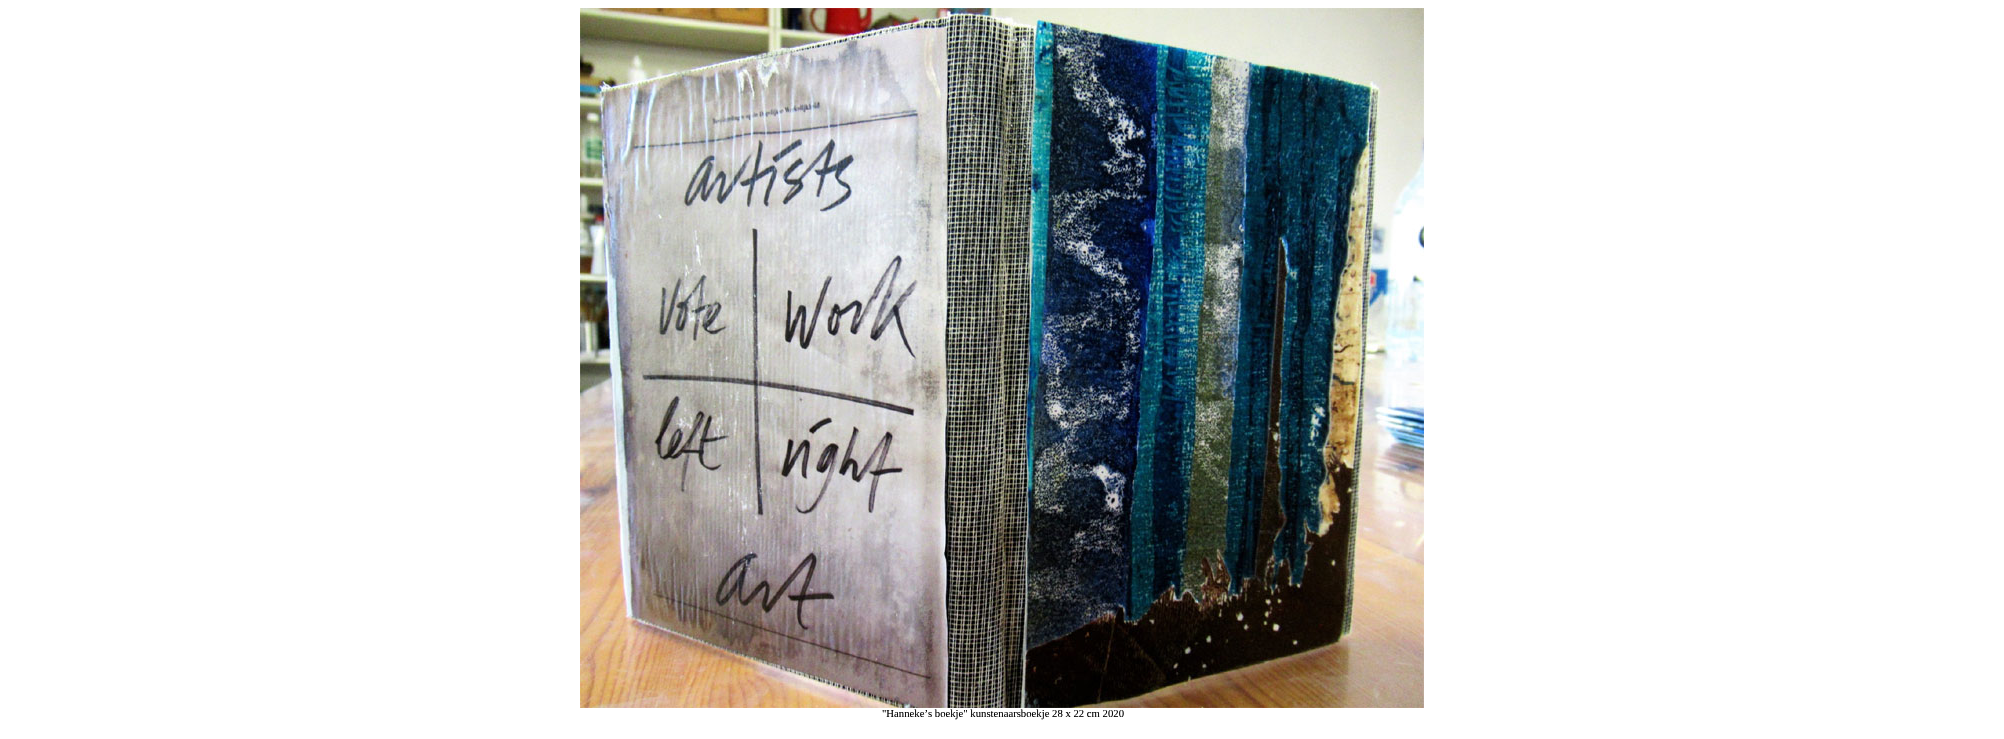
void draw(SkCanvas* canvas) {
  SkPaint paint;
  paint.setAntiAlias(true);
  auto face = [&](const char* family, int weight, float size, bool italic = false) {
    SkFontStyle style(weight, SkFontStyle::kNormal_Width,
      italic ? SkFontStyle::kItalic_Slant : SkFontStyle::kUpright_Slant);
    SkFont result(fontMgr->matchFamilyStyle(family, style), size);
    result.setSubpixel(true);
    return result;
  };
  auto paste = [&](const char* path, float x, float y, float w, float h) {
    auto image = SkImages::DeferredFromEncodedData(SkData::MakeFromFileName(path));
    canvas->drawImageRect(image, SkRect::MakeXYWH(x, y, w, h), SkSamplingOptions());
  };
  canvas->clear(0xffffffff);
  paste("img/1.png", 580, 8, 844, 700);
  auto f0 = face("Liberation Serif", 400, 10.7f);
  paint.setColor(0xff000000);
  canvas->drawString("\"Hanneke’s boekje\" kunstenaarsboekje 28 x 22 cm 2020", 882, 717, f0, paint);
}
